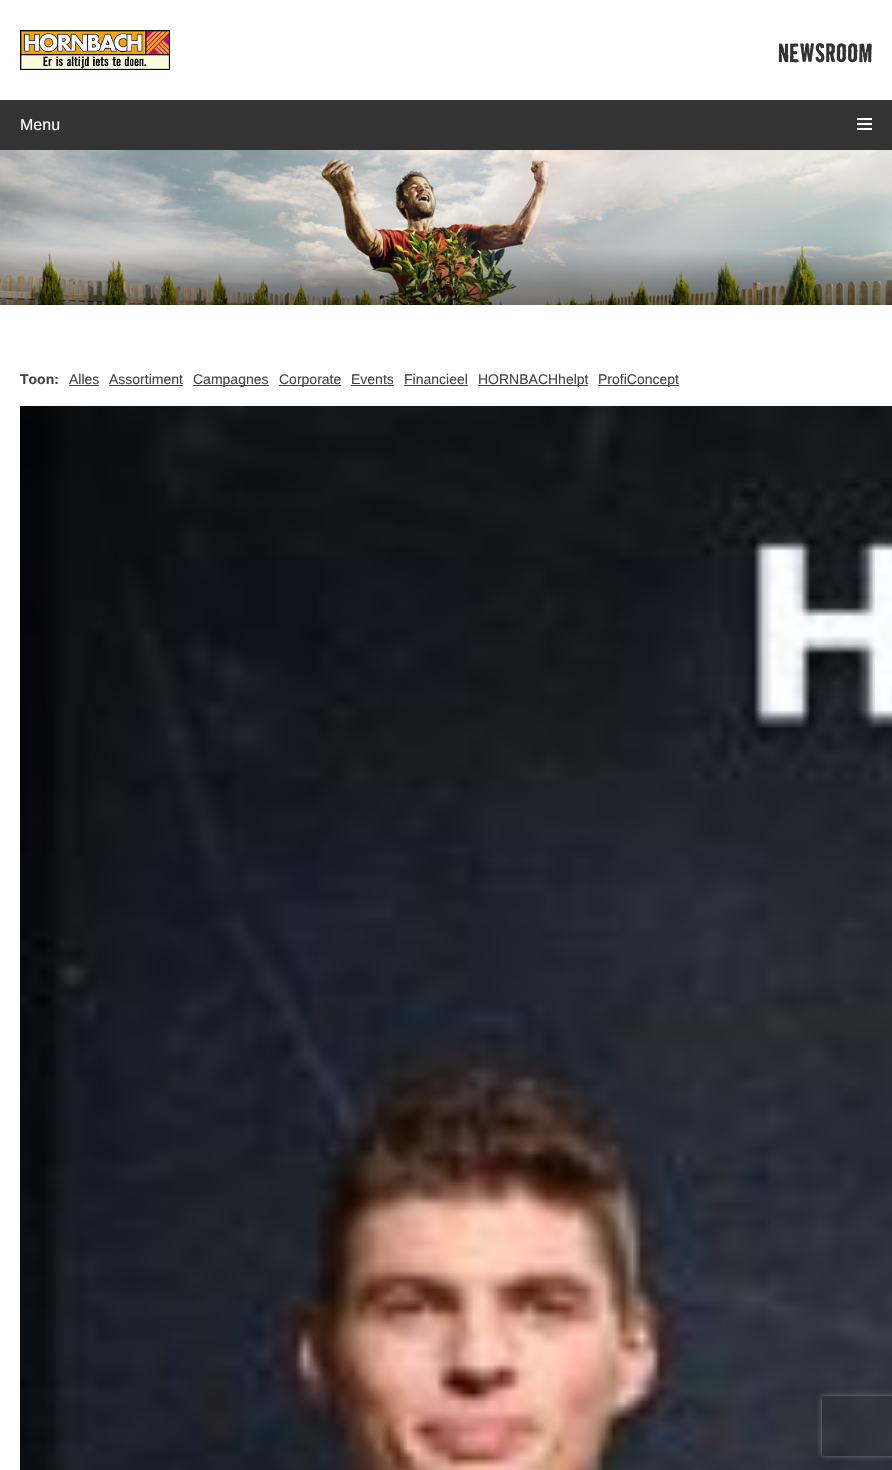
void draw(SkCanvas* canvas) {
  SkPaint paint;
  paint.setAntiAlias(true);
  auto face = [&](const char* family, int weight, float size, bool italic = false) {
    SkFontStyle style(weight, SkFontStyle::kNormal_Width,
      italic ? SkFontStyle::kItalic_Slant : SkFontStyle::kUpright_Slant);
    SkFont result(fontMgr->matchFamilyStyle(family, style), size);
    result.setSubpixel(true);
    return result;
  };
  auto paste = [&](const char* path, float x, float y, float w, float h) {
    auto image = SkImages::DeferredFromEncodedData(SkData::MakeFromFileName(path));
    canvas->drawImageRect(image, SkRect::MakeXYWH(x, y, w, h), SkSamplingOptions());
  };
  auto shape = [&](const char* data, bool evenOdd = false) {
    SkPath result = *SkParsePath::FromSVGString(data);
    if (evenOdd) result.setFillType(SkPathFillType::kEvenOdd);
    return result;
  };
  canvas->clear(0xffffffff);
  paste("img/1.png", 20, 30, 150, 40);
  paint.setColor(0xff333333);
  canvas->drawRect(SkRect::MakeXYWH(0, 100, 892, 50), paint);
  paste("img/2.png", 857, 118, 15, 12);
  paste("img/3.png", 0, 150, 892, 155);
  {
    const struct { float x, y, w, h; SkColor color; } items[] = {
      {69, 385, 30, 1, 0xff444444},
      {109, 385, 74, 1, 0xff444444},
      {193, 385, 76, 1, 0xff444444},
      {279, 385, 62, 1, 0xff444444},
      {351, 385, 43, 1, 0xff444444},
      {404, 385, 64, 1, 0xff444444},
      {478, 385, 110, 1, 0xff444444},
      {598, 385, 81, 1, 0xff444444},
    };
    for (auto [x, y, w, h, color] : items) {
      paint.setColor(color);
      canvas->drawRect(SkRect::MakeXYWH(x, y, w, h), paint);
    }
  }
  paste("img/4.png", 20, 406, 872, 1064);
  canvas->save();
  canvas->clipPath(shape("M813 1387H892V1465H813ZM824 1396H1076C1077 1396 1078 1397 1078 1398V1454C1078 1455 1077 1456 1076 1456H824C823 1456 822 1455 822 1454V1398C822 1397 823 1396 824 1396Z", true), true);
  paint.setColor(0xff808080);
  paint.setMaskFilter(SkMaskFilter::MakeBlur(kNormal_SkBlurStyle, 2.5f));
  canvas->drawRoundRect(SkRect::MakeXYWH(822, 1396, 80, 60), 2, 2, paint);
  paint.setMaskFilter(nullptr);
  canvas->restore();
  auto f0 = face("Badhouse", 700, 24);
  paint.setColor(0xff333333);
  canvas->drawString("NEWSROOM", 778, 62, f0, paint);
  auto f1 = face("Liberation Sans", 400, 16);
  paint.setColor(0xffffffff);
  canvas->drawString("Menu", 20, 130, f1, paint);
  auto f2 = face("Liberation Sans", 700, 14);
  paint.setColor(0xff444444);
  canvas->drawString("Toon:", 20, 384, f2, paint);
  auto f3 = face("Liberation Sans", 400, 14);
  {
    const struct { const char* s; float x, y; } items[] = {
      {"Alles", 69, 384},
      {"Assortiment", 109, 384},
      {"Campagnes", 193, 384},
      {"Corporate", 279, 384},
      {"Events", 351, 384},
      {"Financieel", 404, 384},
      {"HORNBACHhelpt", 478, 384},
      {"ProfiConcept", 598, 384},
    };
    for (auto [s, x, y] : items) {
      canvas->drawString(s, x, y, f3, paint);
    }
  }
}
